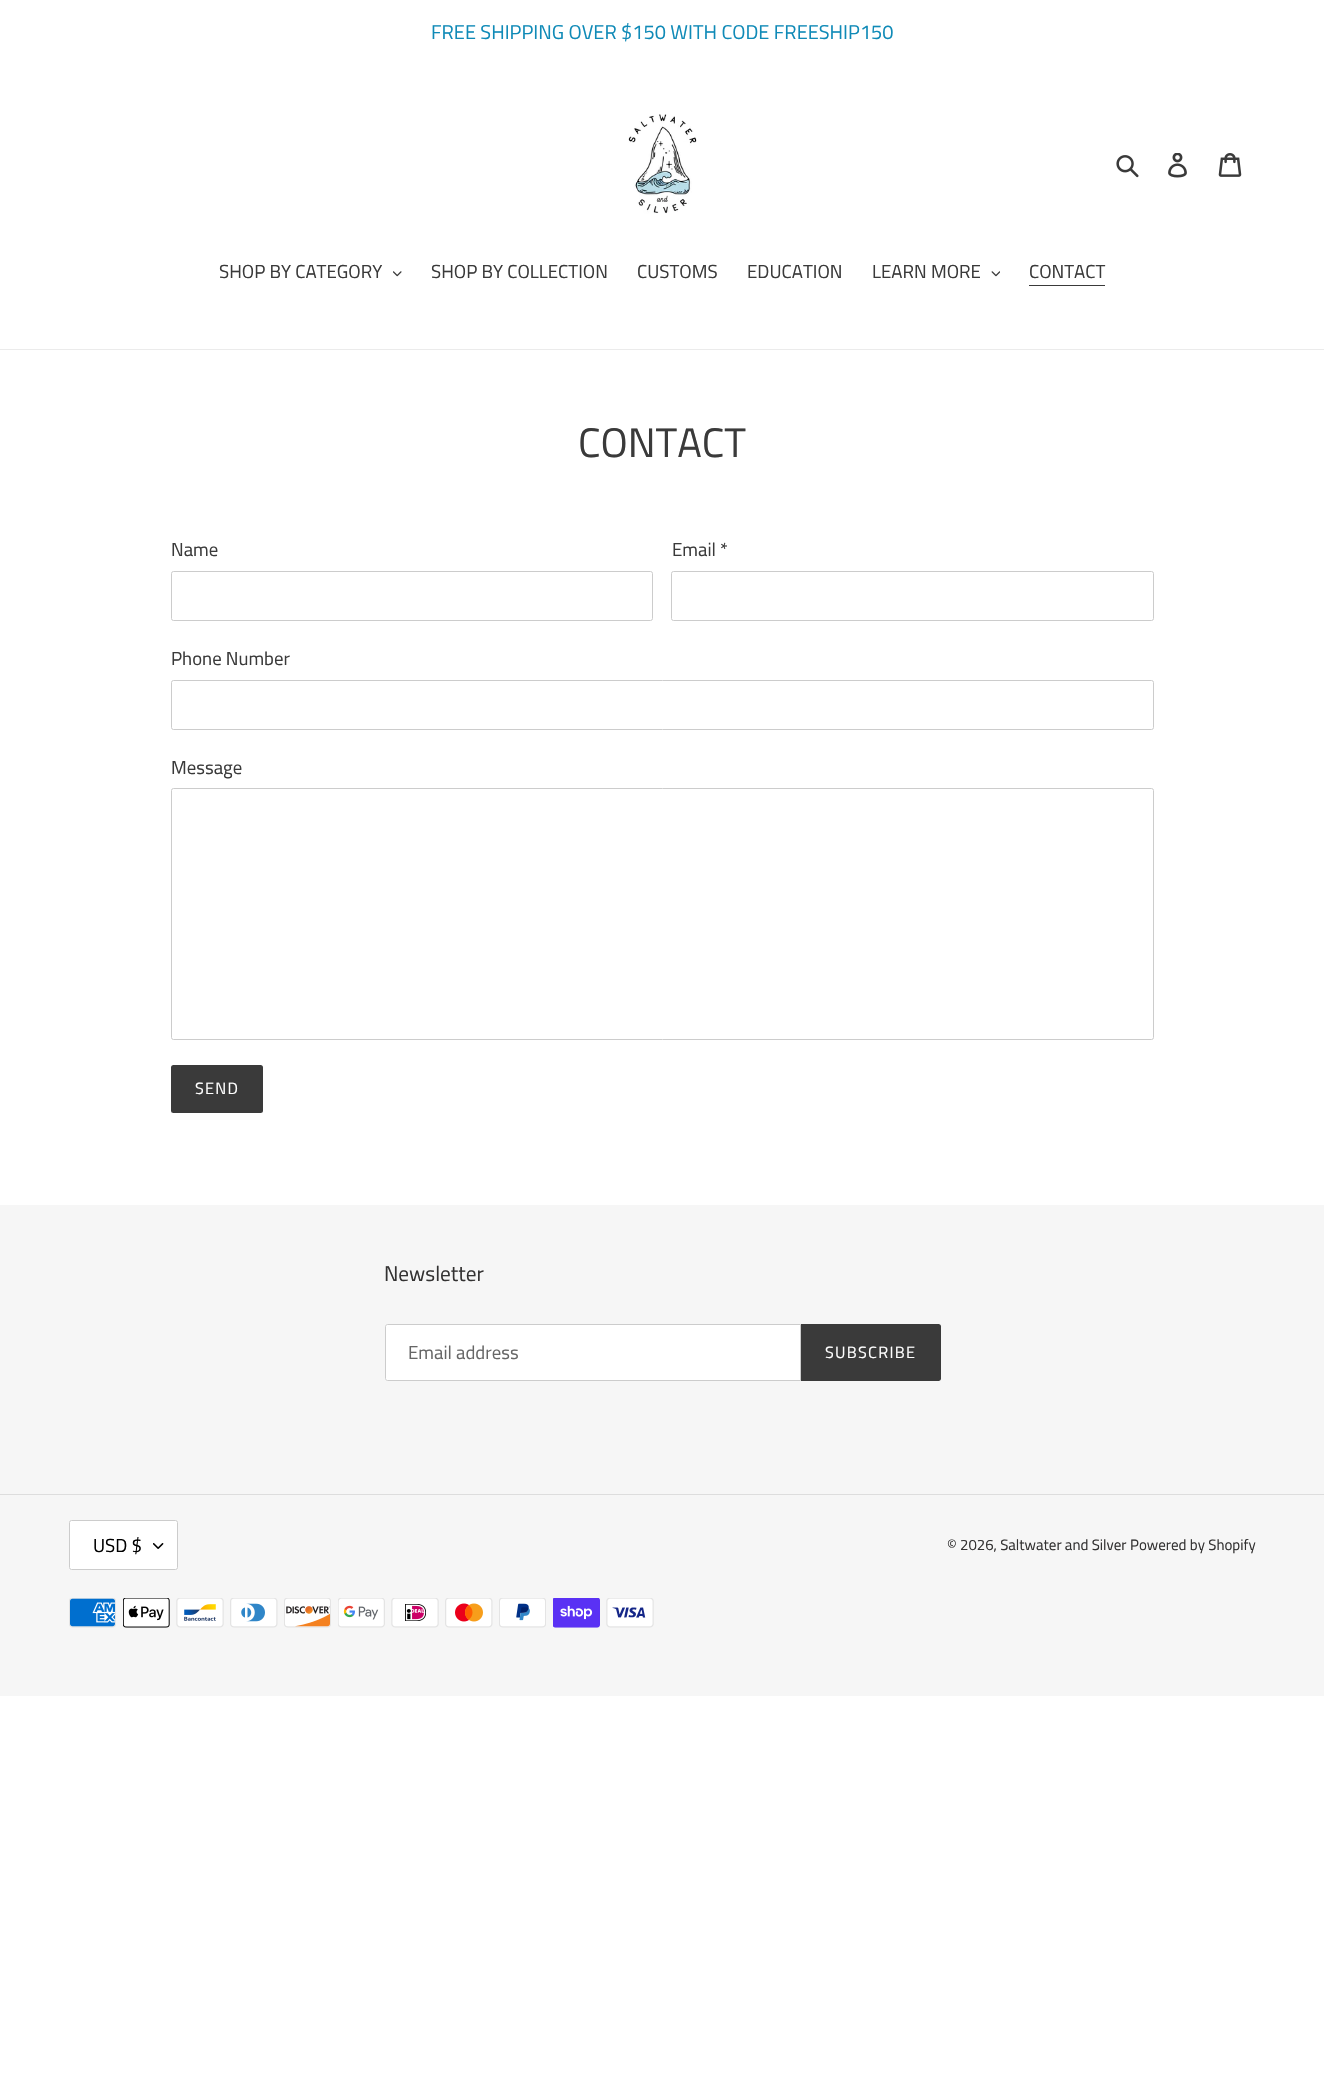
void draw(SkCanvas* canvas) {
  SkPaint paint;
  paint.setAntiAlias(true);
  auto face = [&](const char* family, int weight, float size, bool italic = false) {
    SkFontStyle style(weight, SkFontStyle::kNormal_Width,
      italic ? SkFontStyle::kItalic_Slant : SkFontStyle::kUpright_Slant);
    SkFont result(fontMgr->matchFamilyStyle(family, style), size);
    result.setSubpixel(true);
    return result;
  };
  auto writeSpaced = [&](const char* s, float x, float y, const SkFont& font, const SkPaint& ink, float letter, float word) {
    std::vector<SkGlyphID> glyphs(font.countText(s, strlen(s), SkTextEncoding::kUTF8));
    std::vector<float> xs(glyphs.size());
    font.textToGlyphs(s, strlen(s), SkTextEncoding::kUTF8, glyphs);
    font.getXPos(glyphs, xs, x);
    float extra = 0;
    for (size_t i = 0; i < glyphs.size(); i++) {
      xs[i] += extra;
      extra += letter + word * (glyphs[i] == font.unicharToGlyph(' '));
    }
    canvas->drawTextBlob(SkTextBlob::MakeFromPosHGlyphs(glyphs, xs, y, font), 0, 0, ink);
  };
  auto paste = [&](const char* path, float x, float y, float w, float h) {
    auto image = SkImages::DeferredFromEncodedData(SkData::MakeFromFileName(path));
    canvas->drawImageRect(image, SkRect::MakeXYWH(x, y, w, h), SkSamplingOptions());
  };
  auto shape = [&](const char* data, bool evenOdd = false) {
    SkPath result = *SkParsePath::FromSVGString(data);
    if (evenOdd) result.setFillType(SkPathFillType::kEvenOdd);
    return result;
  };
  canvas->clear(0xffffffff);
  paste("img/1.png", 628, 114, 69, 100);
  paste("img/2.png", 1116, 155, 23, 23);
  paste("img/3.png", 1168, 153, 19, 25);
  paste("img/4.png", 1218, 153, 24, 24);
  paint.setColor(0xffebebeb);
  canvas->drawRect(SkRect::MakeXYWH(0, 349, 1324, 1), paint);
  paste("img/5.png", 393, 271, 9, 6);
  paste("img/6.png", 991, 271, 9, 6);
  paint.setColor(0xff3a3a3a);
  canvas->drawRect(SkRect::MakeXYWH(1029, 285, 76, 1), paint);
  paint.setStroke(true);
  paint.setStrokeWidth(1);
  paint.setColor(0xffcccccc);
  canvas->drawRoundRect(SkRect::MakeXYWH(171.5f, 571.5f, 481, 49), 2, 2, paint);
  canvas->drawRoundRect(SkRect::MakeXYWH(671.5f, 571.5f, 482, 49), 2, 2, paint);
  canvas->drawRoundRect(SkRect::MakeXYWH(171.5f, 680.5f, 982, 49), 2, 2, paint);
  canvas->drawRoundRect(SkRect::MakeXYWH(171.5f, 788.5f, 982, 251), 2, 2, paint);
  paint.setStroke(false);
  paint.setColor(0xff3a3a3a);
  canvas->drawRoundRect(SkRect::MakeXYWH(171, 1065, 92, 48), 2.5f, 2.5f, paint);
  paint.setColor(0xfff6f6f6);
  canvas->drawRect(SkRect::MakeXYWH(0, 1205, 1324, 491), paint);
  paint.setColor(0xffffffff);
  canvas->drawPath(shape("M387.5 1324.5H800.5V1380.5H387.5C386.5 1380.5 385.5 1379.5 385.5 1378.5V1326.5C385.5 1325.5 386.5 1324.5 387.5 1324.5Z"), paint);
  paint.setStroke(true);
  paint.setColor(0xffcccccc);
  canvas->drawPath(shape("M387.5 1324.5H800.5V1380.5H387.5C386.5 1380.5 385.5 1379.5 385.5 1378.5V1326.5C385.5 1325.5 386.5 1324.5 387.5 1324.5Z"), paint);
  paint.setStroke(false);
  paint.setColor(0xff3a3a3a);
  canvas->drawPath(shape("M801 1324H938.5C940 1324 941 1325 941 1326.5V1378.5C941 1380 940 1381 938.5 1381H801Z"), paint);
  paint.setColor(0xffdddddd);
  canvas->drawRect(SkRect::MakeXYWH(0, 1494, 1324, 1), paint);
  paint.setColor(0xffffffff);
  canvas->drawRoundRect(SkRect::MakeXYWH(69, 1520, 109, 50), 2.5f, 2.5f, paint);
  paste("img/7.png", 153, 1543, 11, 6);
  paint.setStroke(true);
  paint.setColor(0xffcccccc);
  canvas->drawRoundRect(SkRect::MakeXYWH(69.5f, 1520.5f, 108, 49), 2, 2, paint);
  paste("img/8.png", 69, 1598, 47, 30);
  paste("img/9.png", 123, 1598, 47, 30);
  paste("img/10.png", 176, 1598, 48, 30);
  paste("img/11.png", 230, 1598, 48, 30);
  paste("img/12.png", 284, 1598, 47, 30);
  paste("img/13.png", 338, 1598, 47, 30);
  paste("img/14.png", 391, 1598, 48, 30);
  paste("img/15.png", 445, 1598, 48, 30);
  paste("img/16.png", 499, 1598, 47, 30);
  paste("img/17.png", 553, 1598, 47, 30);
  paste("img/18.png", 606, 1598, 48, 30);
  auto f0 = face("Titillium Web", 400, 20);
  paint.setStroke(false);
  paint.setColor(0xff0f8ab7);
  canvas->drawString("FREE SHIPPING OVER $150 WITH CODE FREESHIP150", 431, 39, f0, paint);
  auto f1 = face("Titillium Web", 400, 18.75f);
  paint.setColor(0xff3a3a3a);
  {
    const struct { const char* s; float x, y; } items[] = {
      {"SHOP BY CATEGORY", 219, 278},
      {"SHOP BY COLLECTION", 431, 278},
      {"CUSTOMS", 637, 278},
      {"EDUCATION", 747, 278},
      {"LEARN MORE", 872, 278},
      {"CONTACT", 1029, 278},
    };
    for (auto [s, x, y] : items) {
      canvas->drawString(s, x, y, f1, paint);
    }
  }
  auto f2 = face("Titillium Web", 400, 41.25f);
  canvas->drawString("CONTACT", 578, 457, f2, paint);
  {
    const struct { const char* s; float x, y; } items[] = {
      {"Name", 171, 556},
      {"Email *", 672, 556},
      {"Phone Number", 171, 665},
      {"Message", 171, 774},
    };
    for (auto [s, x, y] : items) {
      canvas->drawString(s, x, y, f1, paint);
    }
  }
  auto f3 = face("Titillium Web", 400, 16.25f);
  paint.setColor(0xffffffff);
  writeSpaced("SEND", 195, 1094, f3, paint, 1.25f, 0);
  auto f4 = face("Titillium Web", 400, 21.25f);
  paint.setColor(0xff333232);
  canvas->drawString("Newsletter", 384, 1281, f4, paint);
  paint.setColor(0xff666666);
  canvas->drawString("Email address", 408, 1359, f1, paint);
  paint.setColor(0xffffffff);
  writeSpaced("SUBSCRIBE", 825, 1358, f3, paint, 1.25f, 0);
  paint.setColor(0xff000000);
  canvas->drawString("USD $", 93, 1552, f1, paint);
  auto f5 = face("Titillium Web", 400, 15);
  paint.setColor(0xff333232);
  canvas->drawString("© 2026, Saltwater and Silver", 947, 1550, f5, paint);
  canvas->drawString("Powered by Shopify", 1130, 1550, f5, paint);
}
